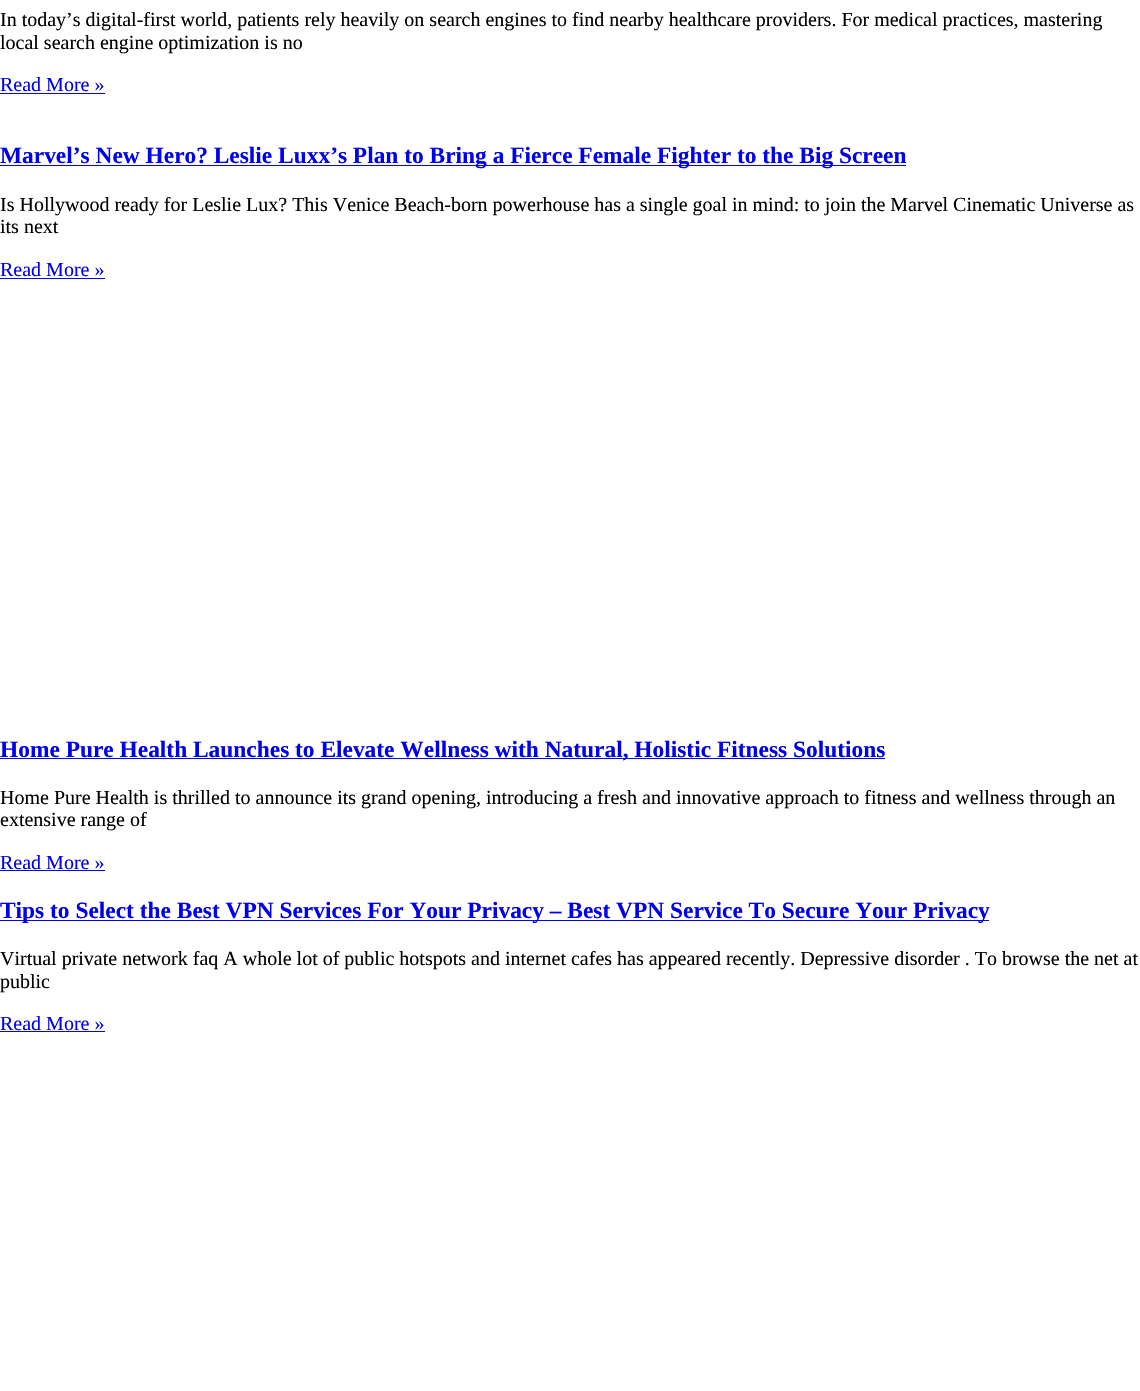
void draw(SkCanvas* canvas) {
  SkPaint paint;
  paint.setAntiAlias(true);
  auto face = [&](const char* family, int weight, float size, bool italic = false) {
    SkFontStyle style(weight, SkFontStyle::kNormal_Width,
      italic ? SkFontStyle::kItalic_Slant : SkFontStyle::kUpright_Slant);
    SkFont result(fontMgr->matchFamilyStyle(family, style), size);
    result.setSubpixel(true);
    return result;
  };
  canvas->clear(0xffffffff);
  {
    const struct { float x, y, w, h; SkColor color; } items[] = {
      {0, 93, 105, 1, 0xff0000ee},
      {0, 165, 906, 1, 0xff0000ee},
      {0, 278, 105, 1, 0xff0000ee},
      {0, 758, 885, 1, 0xff0000ee},
      {0, 870, 105, 1, 0xff0000ee},
      {0, 920, 989, 1, 0xff0000ee},
      {0, 1031, 105, 1, 0xff0000ee},
    };
    for (auto [x, y, w, h, color] : items) {
      paint.setColor(color);
      canvas->drawRect(SkRect::MakeXYWH(x, y, w, h), paint);
    }
  }
  auto f0 = face("Liberation Serif", 400, 20);
  paint.setColor(0xff000000);
  canvas->drawString("In today’s digital-first world, patients rely heavily on search engines to find nearby healthcare providers. For medical practices, mastering", 0, 26, f0, paint);
  canvas->drawString("local search engine optimization is no", 0, 49, f0, paint);
  paint.setColor(0xff0000ee);
  canvas->drawString("Read More »", 0, 91, f0, paint);
  auto f1 = face("Liberation Serif", 700, 23.4f);
  canvas->drawString("Marvel’s New Hero? Leslie Luxx’s Plan to Bring a Fierce Female Fighter to the Big Screen", 0, 163, f1, paint);
  paint.setColor(0xff000000);
  canvas->drawString("Is Hollywood ready for Leslie Lux? This Venice Beach-born powerhouse has a single goal in mind: to join the Marvel Cinematic Universe as", 0, 211, f0, paint);
  canvas->drawString("its next", 0, 233, f0, paint);
  paint.setColor(0xff0000ee);
  canvas->drawString("Read More »", 0, 276, f0, paint);
  canvas->drawString("Home Pure Health Launches to Elevate Wellness with Natural, Holistic Fitness Solutions", 0, 757, f1, paint);
  paint.setColor(0xff000000);
  canvas->drawString("Home Pure Health is thrilled to announce its grand opening, introducing a fresh and innovative approach to fitness and wellness through an", 0, 804, f0, paint);
  canvas->drawString("extensive range of", 0, 826, f0, paint);
  paint.setColor(0xff0000ee);
  canvas->drawString("Read More »", 0, 869, f0, paint);
  canvas->drawString("Tips to Select the Best VPN Services For Your Privacy – Best VPN Service To Secure Your Privacy", 0, 918, f1, paint);
  paint.setColor(0xff000000);
  canvas->drawString("Virtual private network faq A whole lot of public hotspots and internet cafes has appeared recently. Depressive disorder . To browse the net at", 0, 965, f0, paint);
  canvas->drawString("public", 0, 988, f0, paint);
  paint.setColor(0xff0000ee);
  canvas->drawString("Read More »", 0, 1030, f0, paint);
}
